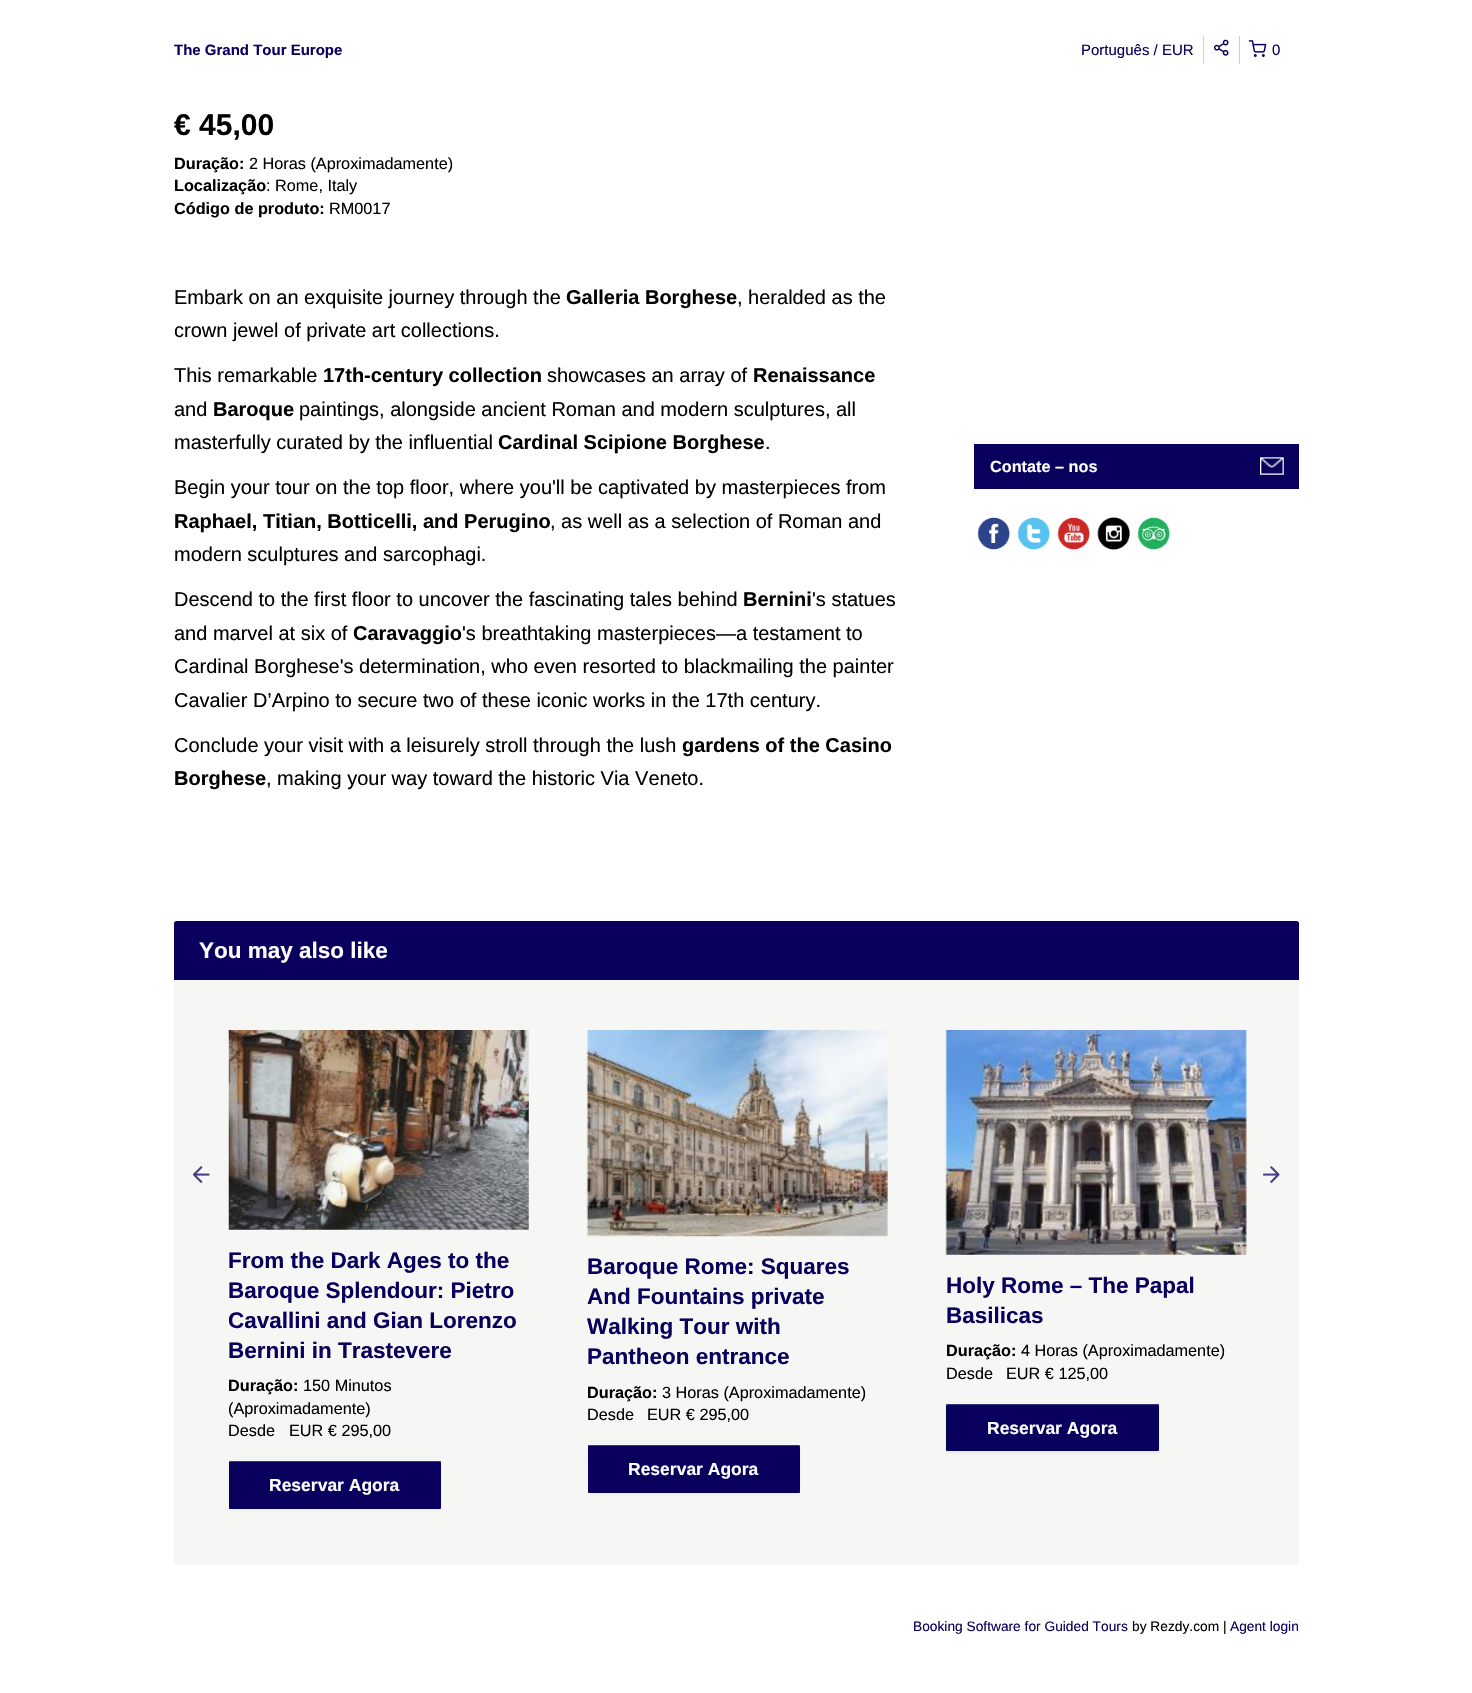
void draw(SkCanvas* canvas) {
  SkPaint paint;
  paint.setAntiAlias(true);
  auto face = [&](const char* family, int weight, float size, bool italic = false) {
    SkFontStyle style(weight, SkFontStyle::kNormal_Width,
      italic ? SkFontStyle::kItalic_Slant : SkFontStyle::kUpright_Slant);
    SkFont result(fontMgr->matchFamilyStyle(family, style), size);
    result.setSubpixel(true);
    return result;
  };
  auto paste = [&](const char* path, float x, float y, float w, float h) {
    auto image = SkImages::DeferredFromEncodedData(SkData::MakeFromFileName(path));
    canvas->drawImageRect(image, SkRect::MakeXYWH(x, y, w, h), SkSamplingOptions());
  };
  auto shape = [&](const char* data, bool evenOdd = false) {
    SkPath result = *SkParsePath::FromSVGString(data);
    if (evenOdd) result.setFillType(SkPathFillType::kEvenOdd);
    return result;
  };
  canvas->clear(0xffffffff);
  paint.setColor(0xffccd1ca);
  canvas->drawRect(SkRect::MakeXYWH(1203, 36, 1, 28), paint);
  canvas->drawRect(SkRect::MakeXYWH(1239, 36, 1, 28), paint);
  paste("img/1.png", 1214, 39, 15, 17);
  paste("img/2.png", 1248, 40, 19, 17);
  paint.setColor(0xff08005c);
  canvas->drawRect(SkRect::MakeXYWH(974, 444, 325, 45), paint);
  paste("img/3.png", 1260, 457, 24, 18);
  paste("img/4.png", 977, 517, 33, 33);
  paste("img/5.png", 1017, 517, 33, 33);
  paste("img/6.png", 1057, 517, 33, 33);
  paste("img/7.png", 1097, 517, 33, 33);
  paste("img/8.png", 1137, 517, 33, 33);
  paint.setColor(0xfff6f7f5);
  canvas->drawRoundRect(SkRect::MakeXYWH(174, 921, 1125, 644), 2.5f, 2.5f, paint);
  paint.setColor(0xff08005c);
  canvas->drawPath(shape("M176.5 921H1296.5C1298 921 1299 922 1299 923.5V980H174V923.5C174 922 175 921 176.5 921Z"), paint);
  paste("img/9.png", 193, 1166, 17, 17);
  paste("img/10.png", 1262, 1166, 18, 17);
  paste("img/11.png", 228, 1030, 301, 200);
  paint.setColor(0x0d000000);
  paint.setMaskFilter(SkMaskFilter::MakeBlur(kNormal_SkBlurStyle, 1));
  canvas->drawRoundRect(SkRect::MakeXYWH(229, 1463, 212, 47), 1, 1, paint);
  paint.setMaskFilter(nullptr);
  paint.setColor(0xff08005c);
  canvas->drawRoundRect(SkRect::MakeXYWH(229, 1461, 212, 48), 1, 1, paint);
  paint.setColor(0x33ffffff);
  canvas->drawPath(shape("M230 1462H440C441 1462 441 1463 441 1464V1462C441 1461 441 1461 440 1461H230C229 1461 229 1461 229 1462V1464C229 1463 229 1462 230 1462Z"), paint);
  paste("img/12.png", 586, 1030, 302, 207);
  paint.setColor(0x0d000000);
  paint.setMaskFilter(SkMaskFilter::MakeBlur(kNormal_SkBlurStyle, 1));
  canvas->drawRoundRect(SkRect::MakeXYWH(588, 1446, 212, 48), 1, 1, paint);
  paint.setMaskFilter(nullptr);
  paint.setColor(0xff08005c);
  canvas->drawRoundRect(SkRect::MakeXYWH(588, 1445, 212, 48), 1, 1, paint);
  paint.setColor(0x33ffffff);
  canvas->drawPath(shape("M589 1446H799L800 1448V1446C800 1445 800 1445 799 1445H589C588 1445 588 1445 588 1446V1448C588 1447 588 1446 589 1446Z"), paint);
  paste("img/13.png", 945, 1030, 302, 225);
  paint.setColor(0x0d000000);
  paint.setMaskFilter(SkMaskFilter::MakeBlur(kNormal_SkBlurStyle, 1));
  canvas->drawRoundRect(SkRect::MakeXYWH(946, 1405, 213, 48), 1, 1, paint);
  paint.setMaskFilter(nullptr);
  paint.setColor(0xff08005c);
  canvas->drawRoundRect(SkRect::MakeXYWH(946, 1404, 213, 47), 1, 1, paint);
  paint.setColor(0x33ffffff);
  canvas->drawPath(shape("M948 1405H1158L1159 1406V1404H1158H947C946 1404 946 1405 946 1406Z"), paint);
  auto f0 = face("Liberation Sans", 700, 15);
  paint.setColor(0xff08005c);
  canvas->drawString("The Grand Tour Europe", 174, 55, f0, paint);
  auto f1 = face("Liberation Sans", 400, 15);
  {
    const struct { const char* s; float x, y; } items[] = {
      {"Português /", 1081, 55},
      {"EUR", 1162, 55},
      {"0", 1272, 55},
    };
    for (auto [s, x, y] : items) {
      canvas->drawString(s, x, y, f1, paint);
    }
  }
  auto f2 = face("Liberation Sans", 700, 30);
  paint.setColor(0xff000000);
  canvas->drawString("€ 45,00", 174, 135, f2, paint);
  auto f3 = face("Liberation Sans", 700, 16.25f);
  canvas->drawString("Duração:", 174, 169, f3, paint);
  auto f4 = face("Liberation Sans", 400, 16.25f);
  canvas->drawString("2 Horas (Aproximadamente)", 249, 169, f4, paint);
  canvas->drawString("Localização", 174, 191, f3, paint);
  canvas->drawString(": Rome, Italy", 266, 191, f4, paint);
  canvas->drawString("Código de produto:", 174, 214, f3, paint);
  canvas->drawString("RM0017", 329, 214, f4, paint);
  auto f5 = face("Liberation Sans", 400, 20);
  canvas->drawString("Embark on an exquisite journey through the", 174, 304, f5, paint);
  auto f6 = face("Liberation Sans", 700, 20);
  canvas->drawString("Galleria Borghese", 566, 304, f6, paint);
  {
    const struct { const char* s; float x, y; } items[] = {
      {", heralded as the", 737, 304},
      {"crown jewel of private art collections.", 174, 337},
      {"This remarkable", 174, 382},
    };
    for (auto [s, x, y] : items) {
      canvas->drawString(s, x, y, f5, paint);
    }
  }
  canvas->drawString("17th-century collection", 323, 382, f6, paint);
  canvas->drawString("showcases an array of", 547, 382, f5, paint);
  canvas->drawString("Renaissance", 753, 382, f6, paint);
  canvas->drawString("and", 174, 416, f5, paint);
  canvas->drawString("Baroque", 213, 416, f6, paint);
  canvas->drawString("paintings, alongside ancient Roman and modern sculptures, all", 299, 416, f5, paint);
  canvas->drawString("masterfully curated by the influential", 174, 449, f5, paint);
  canvas->drawString("Cardinal Scipione Borghese", 498, 449, f6, paint);
  canvas->drawString(".", 765, 449, f5, paint);
  canvas->drawString("Begin your tour on the top floor, where you'll be captivated by masterpieces from", 174, 494, f5, paint);
  canvas->drawString("Raphael, Titian, Botticelli, and Perugino", 174, 528, f6, paint);
  {
    const struct { const char* s; float x, y; } items[] = {
      {", as well as a selection of Roman and", 550, 528},
      {"modern sculptures and sarcophagi.", 174, 561},
      {"Descend to the first floor to uncover the fascinating tales behind", 174, 606},
    };
    for (auto [s, x, y] : items) {
      canvas->drawString(s, x, y, f5, paint);
    }
  }
  canvas->drawString("Bernini", 743, 606, f6, paint);
  canvas->drawString("'s statues", 812, 606, f5, paint);
  canvas->drawString("and marvel at six of", 174, 640, f5, paint);
  canvas->drawString("Caravaggio", 353, 640, f6, paint);
  {
    const struct { const char* s; float x, y; } items[] = {
      {"'s breathtaking masterpieces—a testament to", 462, 640},
      {"Cardinal Borghese's determination, who even resorted to blackmailing the painter", 174, 673},
      {"Cavalier D’Arpino to secure two of these iconic works in the 17th century.", 174, 707},
      {"Conclude your visit with a leisurely stroll through the lush", 174, 752},
    };
    for (auto [s, x, y] : items) {
      canvas->drawString(s, x, y, f5, paint);
    }
  }
  canvas->drawString("gardens of the Casino", 682, 752, f6, paint);
  canvas->drawString("Borghese", 174, 785, f6, paint);
  canvas->drawString(", making your way toward the historic Via Veneto.", 266, 785, f5, paint);
  paint.setColor(0xffffffff);
  canvas->drawString("Contate – nos", 990, 472, f3, paint);
  auto f7 = face("Liberation Sans", 700, 22.5f);
  canvas->drawString("You may also like", 199, 958, f7, paint);
  paint.setColor(0xff08005c);
  {
    const struct { const char* s; float x, y; } items[] = {
      {"From the Dark Ages to the", 228, 1268},
      {"Baroque Splendour: Pietro", 228, 1298},
      {"Cavallini and Gian Lorenzo", 228, 1328},
      {"Bernini in Trastevere", 228, 1358},
    };
    for (auto [s, x, y] : items) {
      canvas->drawString(s, x, y, f7, paint);
    }
  }
  paint.setColor(0xff000000);
  canvas->drawString("Duração:", 228, 1391, f3, paint);
  {
    const struct { const char* s; float x, y; } items[] = {
      {"150 Minutos", 303, 1391},
      {"(Aproximadamente)", 228, 1414},
      {"Desde", 228, 1436},
      {"EUR € 295,00", 289, 1436},
    };
    for (auto [s, x, y] : items) {
      canvas->drawString(s, x, y, f4, paint);
    }
  }
  auto f8 = face("Liberation Sans", 700, 17.5f);
  paint.setColor(0xffffffff);
  canvas->drawString("Reservar Agora", 269, 1491, f8, paint);
  paint.setColor(0xff08005c);
  {
    const struct { const char* s; float x, y; } items[] = {
      {"Baroque Rome: Squares", 587, 1274},
      {"And Fountains private", 587, 1304},
      {"Walking Tour with", 587, 1334},
      {"Pantheon entrance", 587, 1364},
    };
    for (auto [s, x, y] : items) {
      canvas->drawString(s, x, y, f7, paint);
    }
  }
  paint.setColor(0xff000000);
  canvas->drawString("Duração:", 587, 1398, f3, paint);
  {
    const struct { const char* s; float x, y; } items[] = {
      {"3 Horas (Aproximadamente)", 662, 1398},
      {"Desde", 587, 1420},
      {"EUR € 295,00", 647, 1420},
    };
    for (auto [s, x, y] : items) {
      canvas->drawString(s, x, y, f4, paint);
    }
  }
  paint.setColor(0xffffffff);
  canvas->drawString("Reservar Agora", 628, 1475, f8, paint);
  paint.setColor(0xff08005c);
  canvas->drawString("Holy Rome – The Papal", 946, 1293, f7, paint);
  canvas->drawString("Basilicas", 946, 1323, f7, paint);
  paint.setColor(0xff000000);
  canvas->drawString("Duração:", 946, 1356, f3, paint);
  {
    const struct { const char* s; float x, y; } items[] = {
      {"4 Horas (Aproximadamente)", 1021, 1356},
      {"Desde", 946, 1379},
      {"EUR € 125,00", 1006, 1379},
    };
    for (auto [s, x, y] : items) {
      canvas->drawString(s, x, y, f4, paint);
    }
  }
  paint.setColor(0xffffffff);
  canvas->drawString("Reservar Agora", 987, 1434, f8, paint);
  auto f9 = face("Liberation Sans", 400, 13.75f);
  paint.setColor(0xff08005c);
  canvas->drawString("Booking Software for Guided Tours", 913, 1631, f9, paint);
  paint.setColor(0xff000000);
  canvas->drawString("by Rezdy.com |", 1132, 1631, f9, paint);
  paint.setColor(0xff08005c);
  canvas->drawString("Agent login", 1230, 1631, f9, paint);
}
